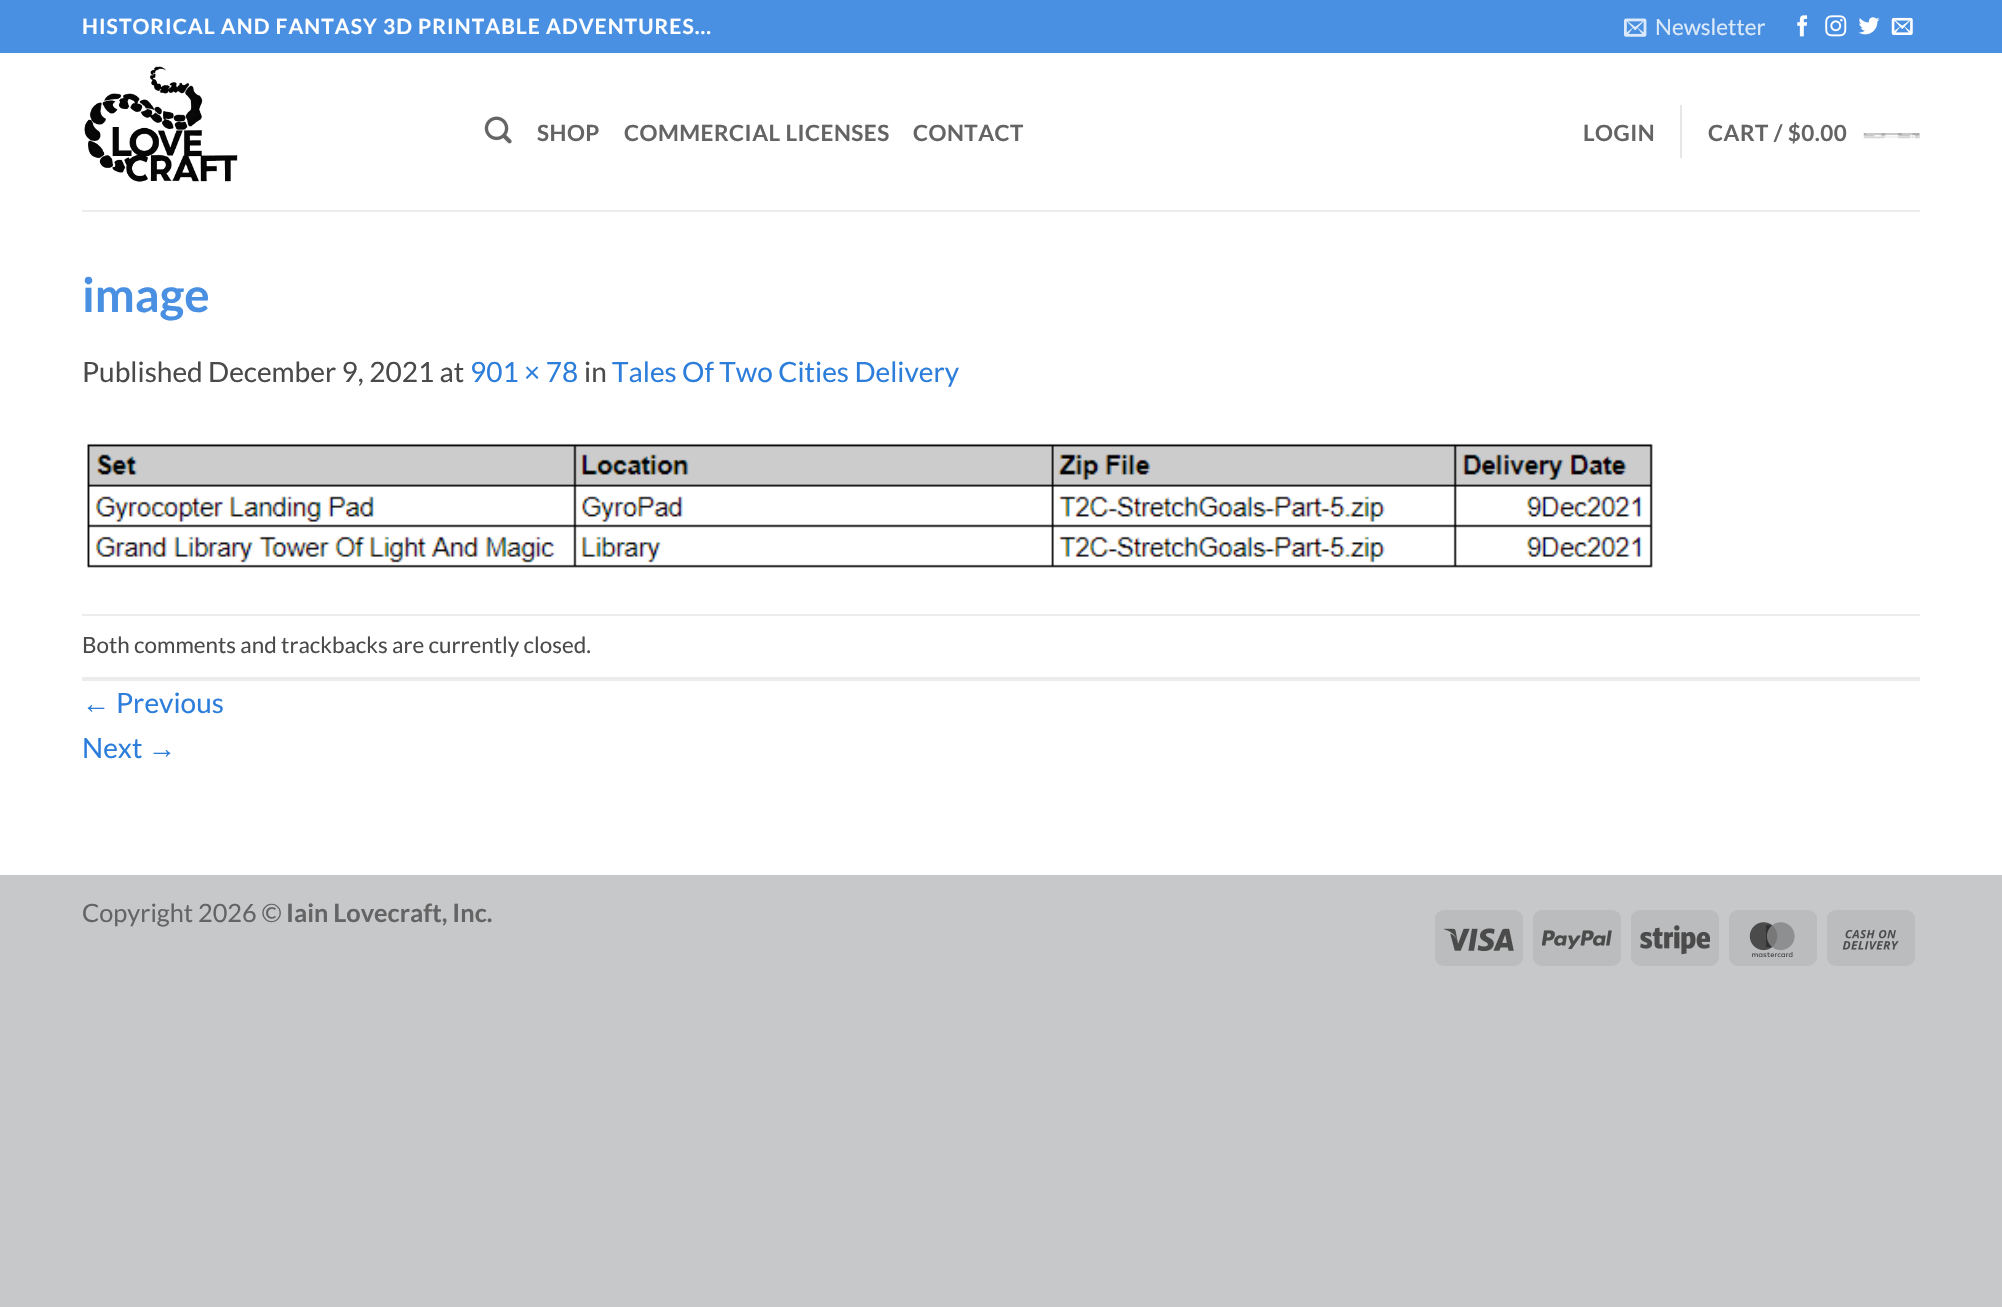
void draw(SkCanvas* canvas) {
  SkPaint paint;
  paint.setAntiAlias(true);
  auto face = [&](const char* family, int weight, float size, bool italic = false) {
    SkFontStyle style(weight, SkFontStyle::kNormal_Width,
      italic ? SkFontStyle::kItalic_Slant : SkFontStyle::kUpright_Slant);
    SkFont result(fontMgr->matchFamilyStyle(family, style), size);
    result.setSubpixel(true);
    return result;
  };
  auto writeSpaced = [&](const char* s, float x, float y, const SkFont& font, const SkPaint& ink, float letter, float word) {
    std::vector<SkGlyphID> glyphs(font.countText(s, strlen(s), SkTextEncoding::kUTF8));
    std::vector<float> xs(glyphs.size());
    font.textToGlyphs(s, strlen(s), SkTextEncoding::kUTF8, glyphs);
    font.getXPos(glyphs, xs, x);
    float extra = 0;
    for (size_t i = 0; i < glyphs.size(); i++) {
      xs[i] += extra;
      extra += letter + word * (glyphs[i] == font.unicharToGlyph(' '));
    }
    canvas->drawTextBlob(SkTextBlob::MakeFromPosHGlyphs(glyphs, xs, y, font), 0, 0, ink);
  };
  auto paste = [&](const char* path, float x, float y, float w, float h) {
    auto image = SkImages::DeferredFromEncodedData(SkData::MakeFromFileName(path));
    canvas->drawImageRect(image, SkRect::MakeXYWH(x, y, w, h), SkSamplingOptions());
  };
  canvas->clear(0xffc7c8c9);
  paint.setColor(0xffffffff);
  canvas->drawRect(SkRect::MakeXYWH(0, 53, 2002, 822), paint);
  paint.setColor(0xff4a90e2);
  canvas->drawRect(SkRect::MakeXYWH(0, 0, 2002, 53), paint);
  paste("img/1.png", 1624, 18, 23, 19);
  paste("img/2.png", 1797, 15, 11, 22);
  paste("img/3.png", 1825, 15, 22, 22);
  paste("img/4.png", 1858, 17, 22, 18);
  paste("img/5.png", 1891, 17, 22, 18);
  paste("img/6.png", 84, 66, 154, 116);
  paste("img/7.png", 484, 116, 28, 28);
  paint.setColor(0xffe6e6e6);
  canvas->drawRect(SkRect::MakeXYWH(1680, 105, 2, 53), paint);
  paste("img/8.png", 1863, 133, 57, 6);
  paint.setColor(0xffededed);
  canvas->drawRect(SkRect::MakeXYWH(82, 210, 1838, 2), paint);
  paste("img/9.png", 87, 443, 1566, 125);
  paint.setColor(0xffececec);
  canvas->drawRect(SkRect::MakeXYWH(82, 614, 1838, 2), paint);
  canvas->drawRect(SkRect::MakeXYWH(82, 677, 1838, 4), paint);
  paint.setColor(0xffbbbcbd);
  canvas->drawRoundRect(SkRect::MakeXYWH(1435, 910, 88, 56), 9, 9, paint);
  paste("img/10.png", 1444, 928, 70, 24);
  canvas->drawRoundRect(SkRect::MakeXYWH(1533, 910, 88, 56), 9, 9, paint);
  paste("img/11.png", 1542, 930, 70, 20);
  canvas->drawRoundRect(SkRect::MakeXYWH(1631, 910, 88, 56), 9, 9, paint);
  paste("img/12.png", 1640, 925, 70, 30);
  canvas->drawRoundRect(SkRect::MakeXYWH(1729, 910, 88, 56), 9, 9, paint);
  paste("img/13.png", 1749, 922, 46, 35);
  canvas->drawRoundRect(SkRect::MakeXYWH(1827, 910, 88, 56), 9, 9, paint);
  paste("img/14.png", 1842, 930, 57, 20);
  auto f0 = face("Lato", 700, 21);
  paint.setColor(0xffffffff);
  writeSpaced("HISTORICAL AND FANTASY 3D PRINTABLE ADVENTURES...", 82, 34, f0, paint, 1.05f, 0);
  auto f1 = face("Lato", 400, 22.4f);
  paint.setColor(0xffdbe9f9);
  canvas->drawString("Newsletter", 1655, 35, f1, paint);
  auto f2 = face("Lato", 700, 22.4f);
  paint.setColor(0xff646465);
  {
    const struct { const char* s; float x, y; } items[] = {
      {"SHOP", 537, 141},
      {"COMMERCIAL LICENSES", 624, 141},
      {"CONTACT", 913, 141},
      {"LOGIN", 1583, 141},
      {"CART / $0.00", 1708, 141},
    };
    for (auto [s, x, y] : items) {
      writeSpaced(s, x, y, f2, paint, 0.5f, 0);
    }
  }
  auto f3 = face("Lato", 700, 47.5f);
  paint.setColor(0xff4a90e2);
  canvas->drawString("image", 82, 312, f3, paint);
  auto f4 = face("Lato", 400, 28);
  paint.setColor(0xff4a4a4a);
  canvas->drawString("Published December 9, 2021 at", 82, 382, f4, paint);
  paint.setColor(0xff2d7edb);
  canvas->drawString("901 × 78", 470, 382, f4, paint);
  paint.setColor(0xff4a4a4a);
  canvas->drawString("in", 584, 382, f4, paint);
  paint.setColor(0xff2d7edb);
  canvas->drawString("Tales Of Two Cities Delivery", 612, 382, f4, paint);
  paint.setColor(0xff4a4a4a);
  canvas->drawString("Both comments and trackbacks are currently closed.", 82, 653, f1, paint);
  auto f5 = face("Liberation Sans", 400, 28);
  paint.setColor(0xff2d7edb);
  canvas->drawString("←", 82, 713, f5, paint);
  canvas->drawString("Previous", 116, 713, f4, paint);
  canvas->drawString("Next", 82, 758, f4, paint);
  canvas->drawString("→", 148, 758, f5, paint);
  auto f6 = face("Lato", 400, 25.25f);
  paint.setColor(0xff646465);
  canvas->drawString("Copyright 2026 ©", 82, 922, f6, paint);
  auto f7 = face("Lato", 700, 25.25f);
  canvas->drawString("Iain Lovecraft, Inc.", 286, 922, f7, paint);
}
